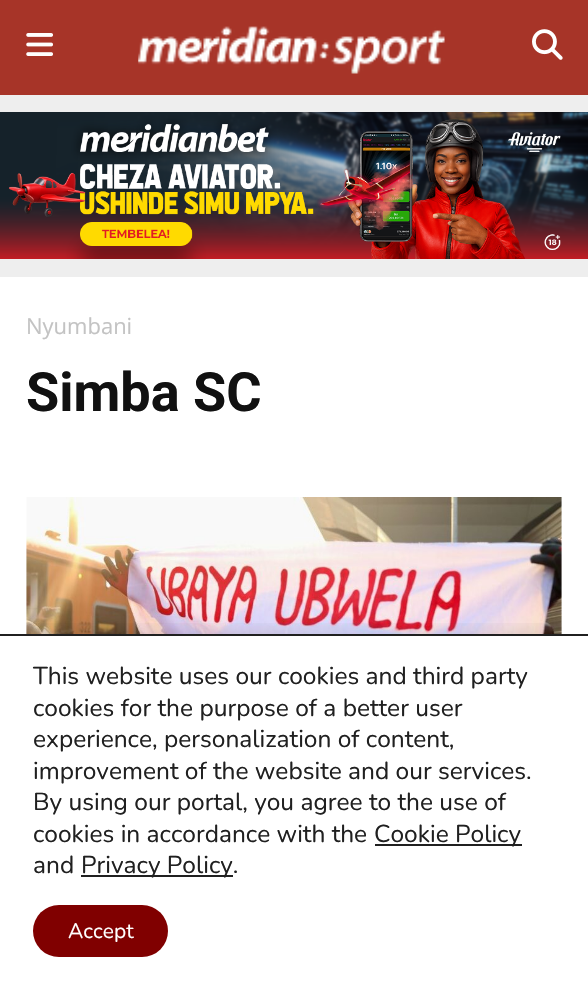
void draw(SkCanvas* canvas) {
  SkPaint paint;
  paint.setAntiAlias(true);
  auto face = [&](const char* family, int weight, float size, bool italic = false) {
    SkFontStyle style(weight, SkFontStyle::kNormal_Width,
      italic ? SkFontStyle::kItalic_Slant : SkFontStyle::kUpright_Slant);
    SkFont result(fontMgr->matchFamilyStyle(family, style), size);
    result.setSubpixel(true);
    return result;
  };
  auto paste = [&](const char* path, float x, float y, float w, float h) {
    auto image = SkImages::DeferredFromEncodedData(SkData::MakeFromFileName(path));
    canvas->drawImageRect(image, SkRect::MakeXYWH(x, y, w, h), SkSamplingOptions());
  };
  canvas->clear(0xffffffff);
  paint.setColor(0xffa73428);
  canvas->drawRect(SkRect::MakeXYWH(0, 0, 588, 95), paint);
  paste("img/1.png", 26, 33, 27, 23);
  paste("img/2.png", 138, 26, 307, 48);
  paste("img/3.png", 532, 29, 31, 31);
  paint.setColor(0xffeeeeee);
  canvas->drawRect(SkRect::MakeXYWH(0, 95, 588, 182), paint);
  paste("img/4.png", 0, 112, 588, 147);
  paste("img/5.png", 26, 497, 536, 137);
  {
    const SkColor colors[] = {0x00000000, 0xb3000000};
    const float stops[] = {0.4f, 1};
    const SkPoint ends[] = {{294, 497}, {294, 798}};
    paint.setShader(SkGradientShader::MakeLinear(ends, colors, stops, 2, SkTileMode::kClamp));
    paint.setAlpha(255);
  }
  canvas->drawRect(SkRect::MakeXYWH(26, 623, 536, 11), paint);
  paint.setShader(nullptr);
  {
    const struct { float x, y, w, h; SkColor color; } items[] = {
      {0, 634, 588, 2, 0xff202020},
      {375, 844, 147, 2, 0xff202020},
      {81, 875, 152, 2, 0xff202020},
    };
    for (auto [x, y, w, h, color] : items) {
      paint.setColor(color);
      canvas->drawRect(SkRect::MakeXYWH(x, y, w, h), paint);
    }
  }
  paint.setColor(0xff800000);
  canvas->drawRoundRect(SkRect::MakeXYWH(33, 905, 135, 52), 26, 26, paint);
  auto f0 = face("Open Sans", 400, 22);
  paint.setColor(0xffc3c3c3);
  canvas->drawString("Nyumbani", 26, 334, f0, paint);
  auto f1 = face("Roboto", 700, 54);
  paint.setColor(0xff111111);
  canvas->drawString("Simba SC", 26, 411, f1, paint);
  auto f2 = face("Nunito", 400, 24.5f);
  paint.setColor(0xff202020);
  {
    const struct { const char* s; float x, y; } items[] = {
      {"This website uses our cookies and third party", 33, 684},
      {"cookies for the purpose of a better user", 33, 716},
      {"experience, personalization of content,", 33, 747},
      {"improvement of the website and our services.", 33, 779},
      {"By using our portal, you agree to the use of", 33, 810},
      {"cookies in accordance with the", 33, 842},
      {"Cookie Policy", 374, 842},
      {"and", 33, 873},
      {"Privacy Policy.", 81, 873},
    };
    for (auto [s, x, y] : items) {
      canvas->drawString(s, x, y, f2, paint);
    }
  }
  auto f3 = face("Nunito", 400, 21);
  paint.setColor(0xffffffff);
  canvas->drawString("Accept", 68, 938, f3, paint);
}
